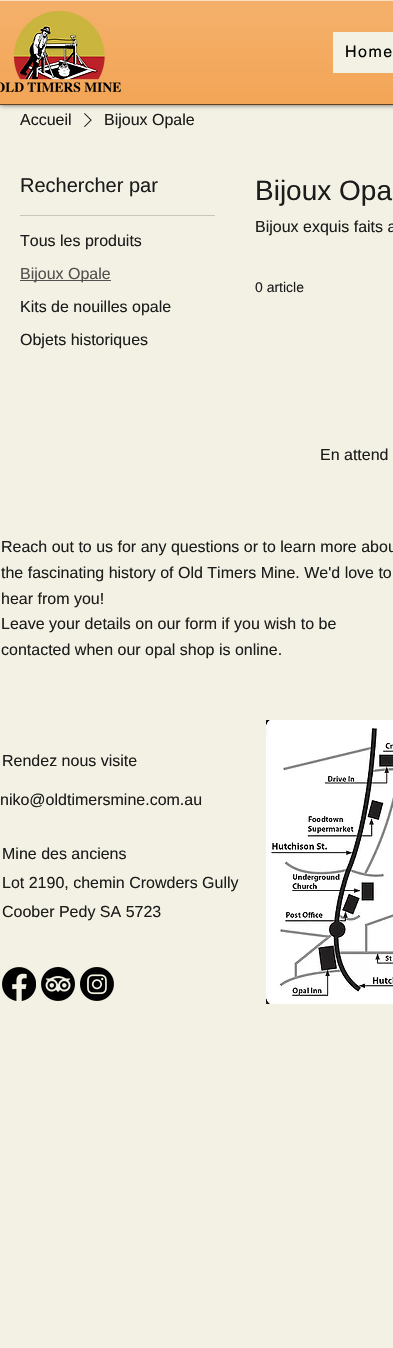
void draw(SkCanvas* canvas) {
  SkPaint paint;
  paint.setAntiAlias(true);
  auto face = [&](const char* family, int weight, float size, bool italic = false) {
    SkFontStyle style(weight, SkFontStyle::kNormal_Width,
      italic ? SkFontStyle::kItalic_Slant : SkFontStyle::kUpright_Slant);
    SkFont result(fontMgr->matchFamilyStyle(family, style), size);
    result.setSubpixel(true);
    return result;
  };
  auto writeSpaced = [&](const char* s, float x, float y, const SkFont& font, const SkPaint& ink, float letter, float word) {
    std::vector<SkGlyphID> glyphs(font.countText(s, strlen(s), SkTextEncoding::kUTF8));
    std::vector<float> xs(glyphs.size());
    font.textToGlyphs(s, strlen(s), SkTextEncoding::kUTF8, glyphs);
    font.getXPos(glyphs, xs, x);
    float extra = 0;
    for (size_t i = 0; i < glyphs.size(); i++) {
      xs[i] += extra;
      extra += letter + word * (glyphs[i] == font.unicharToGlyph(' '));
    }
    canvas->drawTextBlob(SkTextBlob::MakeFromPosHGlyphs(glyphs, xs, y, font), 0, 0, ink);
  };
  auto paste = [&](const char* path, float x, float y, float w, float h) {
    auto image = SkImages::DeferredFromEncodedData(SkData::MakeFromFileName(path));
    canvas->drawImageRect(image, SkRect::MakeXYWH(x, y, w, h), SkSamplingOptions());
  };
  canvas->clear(0xfff3f1e4);
  paste("img/3.png", 84, 113, 8, 14);
  paint.setColor(0x99000000);
  paint.setMaskFilter(SkMaskFilter::MakeBlur(kNormal_SkBlurStyle, 2.5f));
  canvas->drawRect(SkRect::MakeXYWH(0, 0, 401, 105), paint);
  paint.setMaskFilter(nullptr);
  paint.setColor(0xfff19537);
  canvas->drawRect(SkRect::MakeXYWH(0, 1, 393, 103), paint);
  paste("img/1.png", 0, 1, 393, 103);
  paint.setColor(0xff614222);
  canvas->drawRect(SkRect::MakeXYWH(0, 104, 393, 1), paint);
  paint.setColor(0xfffbe0c4);
  canvas->drawRect(SkRect::MakeXYWH(0, 0, 393, 1), paint);
  paste("img/2.png", 0, 11, 121, 81);
  {
    const struct { float x, y, w, h; SkColor color; } items[] = {
      {333, 32, 60, 41, 0xfff3f1e4},
      {20, 215, 195, 1, 0xffc8c6bc},
      {20, 280, 91, 1, 0xff52514e},
    };
    for (auto [x, y, w, h, color] : items) {
      paint.setColor(color);
      canvas->drawRect(SkRect::MakeXYWH(x, y, w, h), paint);
    }
  }
  paste("img/4.png", 266, 720, 127, 284);
  paste("img/5.png", 2, 967, 34, 34);
  paste("img/6.png", 41, 967, 34, 34);
  paste("img/7.png", 80, 967, 34, 34);
  auto f0 = face("helvetica", 400, 16);
  paint.setColor(0xff000000);
  writeSpaced("Home", 345, 57, f0, paint, 1.5f, 0);
  auto f1 = face("Liberation Sans", 400, 16);
  paint.setColor(0xff1c1c1c);
  canvas->drawString("Accueil", 20, 125, f1, paint);
  canvas->drawString("Bijoux Opale", 104, 125, f1, paint);
  auto f2 = face("Liberation Sans", 400, 20);
  canvas->drawString("Rechercher par", 20, 192, f2, paint);
  canvas->drawString("Tous les produits", 20, 246, f1, paint);
  paint.setColor(0xff52514e);
  canvas->drawString("Bijoux Opale", 20, 279, f1, paint);
  paint.setColor(0xff1c1c1c);
  canvas->drawString("Kits de nouilles opale", 20, 312, f1, paint);
  canvas->drawString("Objets historiques", 20, 345, f1, paint);
  auto f3 = face("Liberation Sans", 400, 28);
  canvas->drawString("Bijoux Opa", 255, 200, f3, paint);
  canvas->drawString("Bijoux exquis faits a", 255, 232, f1, paint);
  auto f4 = face("Liberation Sans", 400, 14);
  canvas->drawString("0 article", 255, 292, f4, paint);
  {
    const struct { const char* s; float x, y; } items[] = {
      {"En attend", 320, 460},
      {"Reach out to us for any questions or to learn more abou", 1, 552},
      {"the fascinating history of Old Timers Mine. We'd love to", 1, 578},
      {"hear from you!", 1, 604},
      {"Leave your details on our form if you wish to be", 1, 629},
      {"contacted when our opal shop is online.", 1, 655},
      {"Rendez nous visite", 2, 766},
      {"niko@oldtimersmine.com.au", 0, 805},
      {"Mine des anciens", 2, 859},
      {"Lot 2190, chemin Crowders Gully", 2, 888},
      {"Coober Pedy SA 5723", 2, 917},
    };
    for (auto [s, x, y] : items) {
      canvas->drawString(s, x, y, f1, paint);
    }
  }
}
